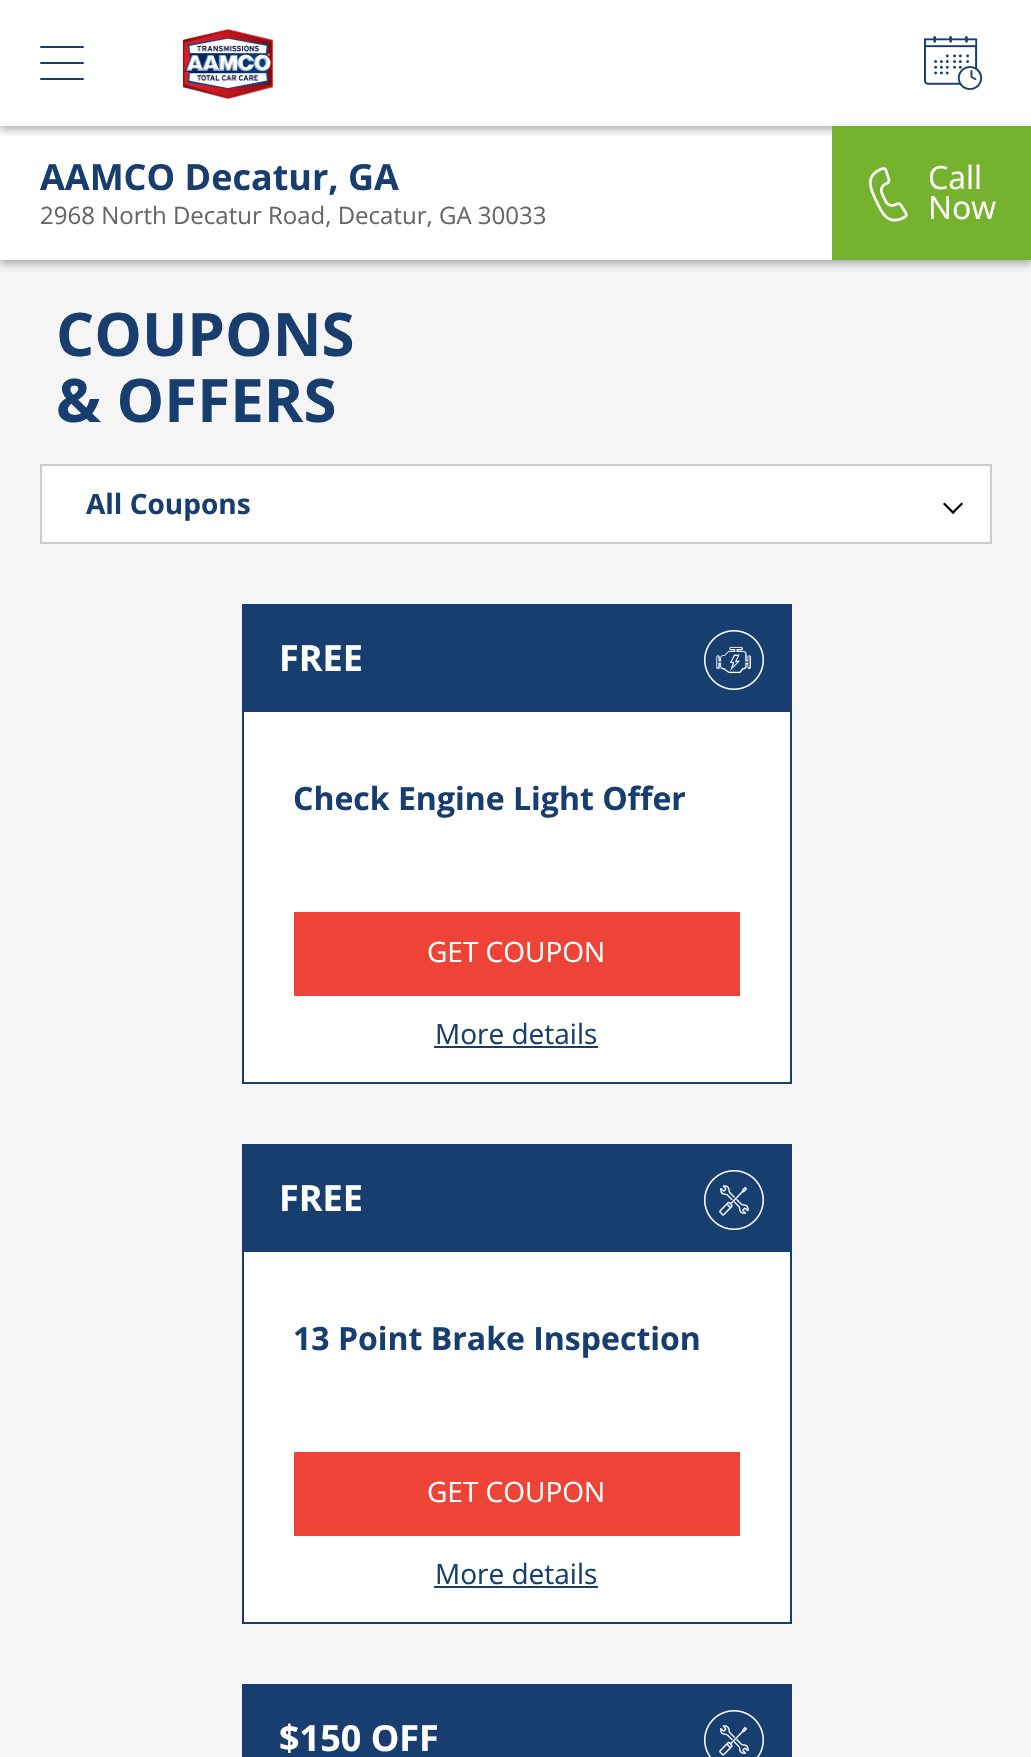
void draw(SkCanvas* canvas) {
  SkPaint paint;
  paint.setAntiAlias(true);
  auto face = [&](const char* family, int weight, float size, bool italic = false) {
    SkFontStyle style(weight, SkFontStyle::kNormal_Width,
      italic ? SkFontStyle::kItalic_Slant : SkFontStyle::kUpright_Slant);
    SkFont result(fontMgr->matchFamilyStyle(family, style), size);
    result.setSubpixel(true);
    return result;
  };
  auto paste = [&](const char* path, float x, float y, float w, float h) {
    auto image = SkImages::DeferredFromEncodedData(SkData::MakeFromFileName(path));
    canvas->drawImageRect(image, SkRect::MakeXYWH(x, y, w, h), SkSamplingOptions());
  };
  auto shape = [&](const char* data, bool evenOdd = false) {
    SkPath result = *SkParsePath::FromSVGString(data);
    if (evenOdd) result.setFillType(SkPathFillType::kEvenOdd);
    return result;
  };
  canvas->clear(0xffffffff);
  canvas->save();
  canvas->clipRect(SkRect::MakeXYWH(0, 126, 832, 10));
  paint.setColor(0x4d000000);
  paint.setMaskFilter(SkMaskFilter::MakeBlur(kNormal_SkBlurStyle, 4));
  canvas->drawRect(SkRect::MakeXYWH(0, 4, 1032, 126), paint);
  paint.setMaskFilter(nullptr);
  canvas->restore();
  paint.setColor(0xff173e6e);
  canvas->drawRoundRect(SkRect::MakeXYWH(40, 46, 44, 2), 1, 1, paint);
  canvas->drawRoundRect(SkRect::MakeXYWH(40, 62, 44, 2), 1, 1, paint);
  canvas->drawRoundRect(SkRect::MakeXYWH(40, 78, 44, 2), 1, 1, paint);
  paste("img/1.png", 182, 29, 92, 70);
  paste("img/2.png", 924, 36, 59, 54);
  paint.setColor(0xfff5f5f5);
  canvas->drawRect(SkRect::MakeXYWH(0, 260, 1031, 1497), paint);
  canvas->save();
  canvas->clipPath(shape("M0 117H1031V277H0ZM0 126H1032V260H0Z", true), true);
  paint.setColor(0x4d000000);
  paint.setMaskFilter(SkMaskFilter::MakeBlur(kNormal_SkBlurStyle, 4));
  canvas->drawRect(SkRect::MakeXYWH(0, 130, 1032, 134), paint);
  paint.setMaskFilter(nullptr);
  canvas->restore();
  paint.setColor(0xff75b32e);
  canvas->drawRect(SkRect::MakeXYWH(832, 126, 199, 134), paint);
  paste("img/3.png", 869, 167, 39, 55);
  paint.setColor(0xffffffff);
  canvas->drawRect(SkRect::MakeXYWH(41, 465, 950, 78), paint);
  paint.setStroke(true);
  paint.setStrokeWidth(2);
  paint.setColor(0xffcccccc);
  canvas->drawRect(SkRect::MakeXYWH(41, 465, 950, 78), paint);
  paint.setStroke(false);
  paint.setColor(0xff000000);
  canvas->drawPath(shape("M963 504L953 514L951.5 512.5L961.5 502.5Z"), paint);
  canvas->drawPath(shape("M954.5 512.5L953 514L943 504L944.5 502.5Z"), paint);
  paint.setColor(0xffffffff);
  canvas->drawRect(SkRect::MakeXYWH(244, 712, 546, 370), paint);
  paint.setStroke(true);
  paint.setColor(0xff173e6e);
  canvas->drawRect(SkRect::MakeXYWH(243, 605, 548, 478), paint);
  paint.setStroke(false);
  canvas->drawRect(SkRect::MakeXYWH(244, 606, 546, 106), paint);
  paste("img/4.png", 704, 630, 60, 60);
  {
    const struct { float x, y, w, h; SkColor color; } items[] = {
      {294, 912, 446, 84, 0xffee4438},
      {434, 1046, 164, 2, 0xff173e6e},
      {244, 1252, 546, 370, 0xffffffff},
    };
    for (auto [x, y, w, h, color] : items) {
      paint.setColor(color);
      canvas->drawRect(SkRect::MakeXYWH(x, y, w, h), paint);
    }
  }
  paint.setStroke(true);
  paint.setColor(0xff173e6e);
  canvas->drawRect(SkRect::MakeXYWH(243, 1145, 548, 478), paint);
  paint.setStroke(false);
  canvas->drawRect(SkRect::MakeXYWH(244, 1146, 546, 106), paint);
  paste("img/5.png", 704, 1170, 60, 60);
  paint.setColor(0xffee4438);
  canvas->drawRect(SkRect::MakeXYWH(294, 1452, 446, 84), paint);
  paint.setColor(0xff173e6e);
  canvas->drawRect(SkRect::MakeXYWH(434, 1586, 164, 2), paint);
  paint.setStroke(true);
  canvas->drawRect(SkRect::MakeXYWH(243, 1685, 548, 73), paint);
  paint.setStroke(false);
  canvas->drawRect(SkRect::MakeXYWH(244, 1686, 546, 71), paint);
  paste("img/6.png", 704, 1710, 60, 47);
  auto f0 = face("Open Sans", 700, 36);
  canvas->drawString("AAMCO Decatur, GA", 40, 190, f0, paint);
  auto f1 = face("Open Sans", 400, 24);
  paint.setColor(0xff666666);
  canvas->drawString("2968 North Decatur Road, Decatur, GA 30033", 40, 224, f1, paint);
  auto f2 = face("Open Sans", 400, 32);
  paint.setColor(0xffffffff);
  canvas->drawString("Call", 928, 189, f2, paint);
  canvas->drawString("Now", 928, 219, f2, paint);
  auto f3 = face("Open Sans", 700, 60);
  paint.setColor(0xff173e6e);
  canvas->drawString("COUPONS", 56, 356, f3, paint);
  canvas->drawString("& OFFERS", 56, 422, f3, paint);
  auto f4 = face("Open Sans", 700, 28);
  canvas->drawString("All Coupons", 86, 514, f4, paint);
  paint.setColor(0xffffffff);
  canvas->drawString("FREE", 279, 671, f0, paint);
  auto f5 = face("Open Sans", 700, 32);
  paint.setColor(0xff173e6e);
  canvas->drawString("Check Engine Light Offer", 293, 810, f5, paint);
  auto f6 = face("Open Sans", 400, 28);
  paint.setColor(0xffffffff);
  canvas->drawString("GET COUPON", 427, 962, f6, paint);
  paint.setColor(0xff173e6e);
  canvas->drawString("More details", 435, 1044, f6, paint);
  paint.setColor(0xffffffff);
  canvas->drawString("FREE", 279, 1211, f0, paint);
  paint.setColor(0xff173e6e);
  canvas->drawString("13 Point Brake Inspection", 293, 1350, f5, paint);
  paint.setColor(0xffffffff);
  canvas->drawString("GET COUPON", 427, 1502, f6, paint);
  paint.setColor(0xff173e6e);
  canvas->drawString("More details", 435, 1584, f6, paint);
  paint.setColor(0xffffffff);
  canvas->drawString("$150 OFF", 279, 1751, f0, paint);
}
